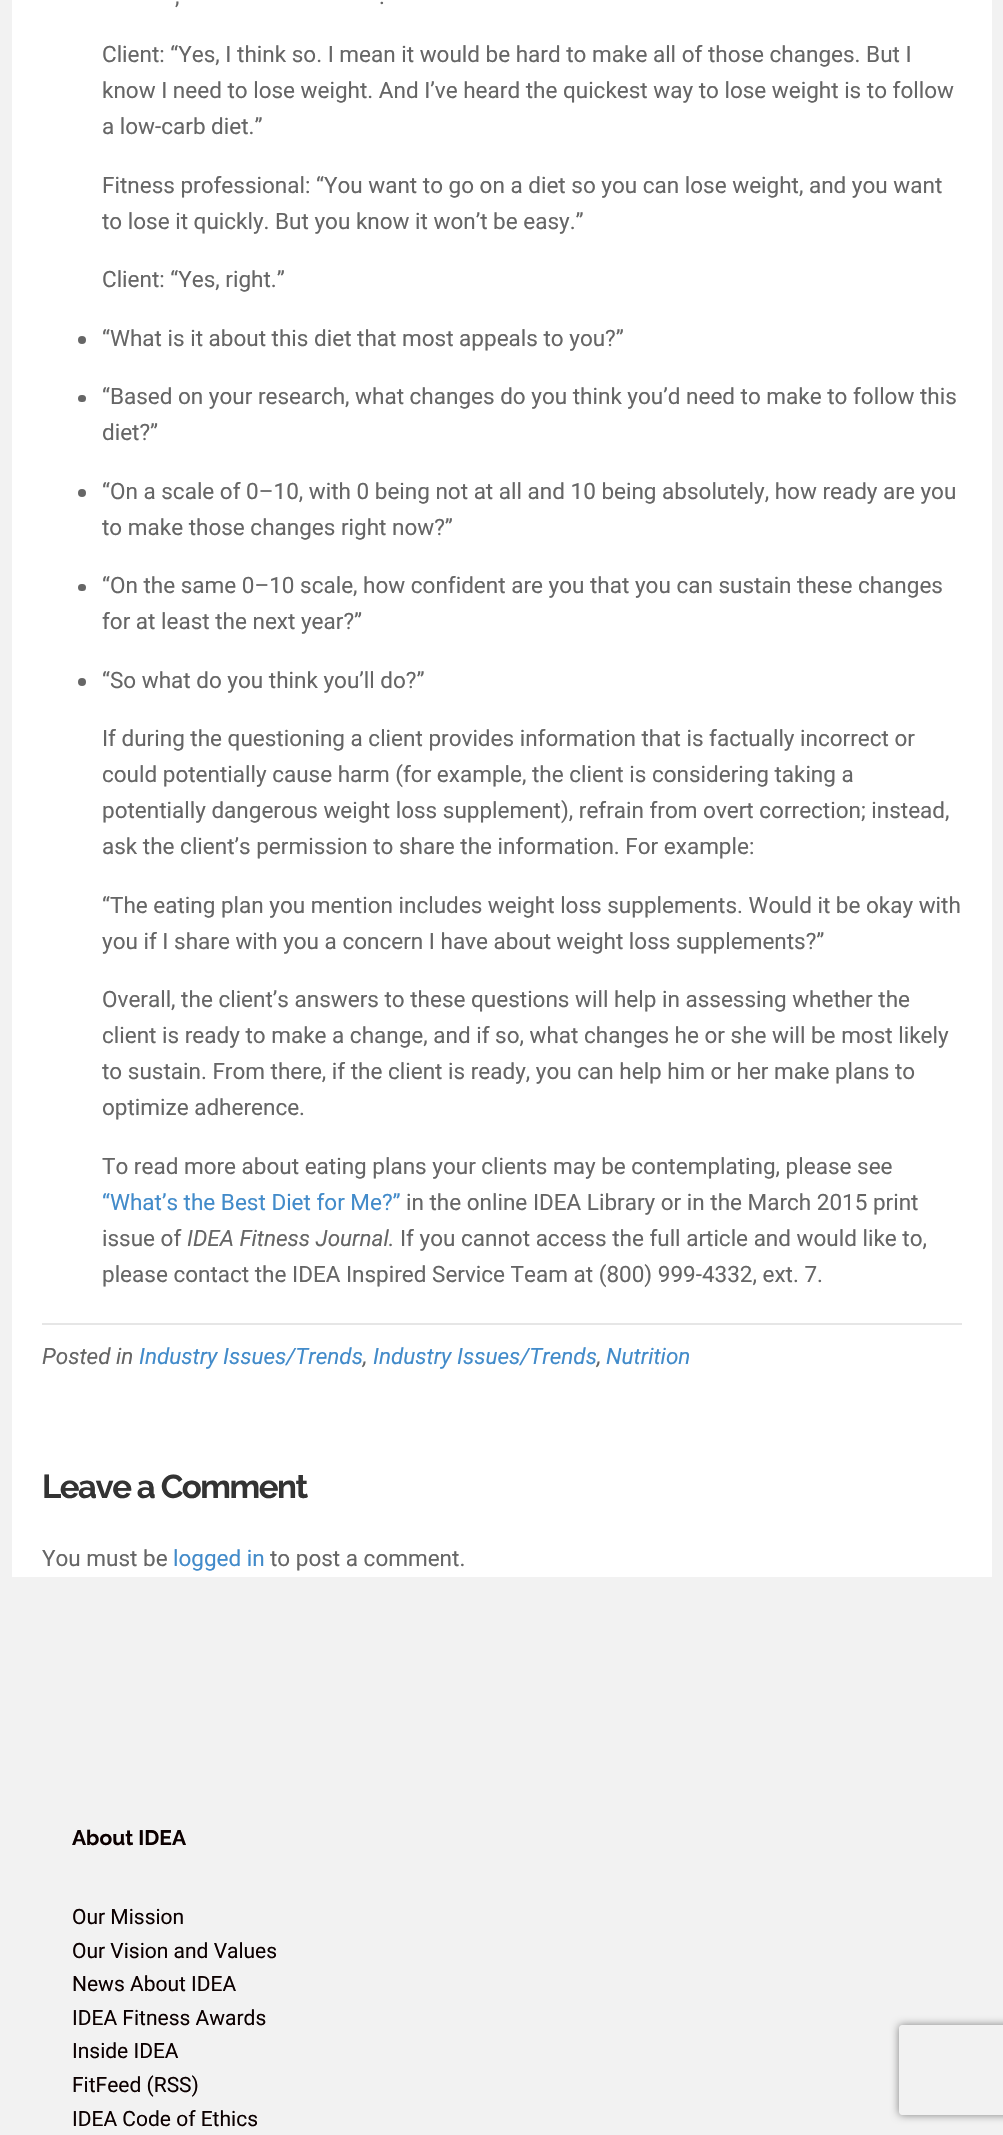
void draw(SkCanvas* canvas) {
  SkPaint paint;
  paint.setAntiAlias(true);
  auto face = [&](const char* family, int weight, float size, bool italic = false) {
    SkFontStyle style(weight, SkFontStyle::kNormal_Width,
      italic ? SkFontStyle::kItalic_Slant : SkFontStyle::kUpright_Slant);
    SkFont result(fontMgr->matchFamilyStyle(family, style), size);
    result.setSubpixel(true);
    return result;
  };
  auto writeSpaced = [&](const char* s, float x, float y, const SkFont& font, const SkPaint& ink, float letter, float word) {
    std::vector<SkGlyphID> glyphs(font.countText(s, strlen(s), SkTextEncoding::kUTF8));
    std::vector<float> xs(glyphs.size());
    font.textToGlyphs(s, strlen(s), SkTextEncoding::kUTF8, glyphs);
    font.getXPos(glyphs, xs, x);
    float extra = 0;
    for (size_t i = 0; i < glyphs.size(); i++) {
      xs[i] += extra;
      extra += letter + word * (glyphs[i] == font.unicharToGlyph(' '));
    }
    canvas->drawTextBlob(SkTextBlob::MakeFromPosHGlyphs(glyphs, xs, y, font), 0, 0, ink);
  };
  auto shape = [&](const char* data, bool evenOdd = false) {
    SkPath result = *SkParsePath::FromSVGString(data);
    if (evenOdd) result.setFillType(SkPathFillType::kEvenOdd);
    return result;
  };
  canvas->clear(0xfff2f2f2);
  paint.setColor(0xffffffff);
  canvas->drawRect(SkRect::MakeXYWH(12, 0, 980, 1577), paint);
  paint.setColor(0xff666666);
  canvas->drawCircle(82, 340, 4, paint);
  canvas->drawRoundRect(SkRect::MakeXYWH(78, 395, 8, 7), 3.5f, 3.5f, paint);
  canvas->drawCircle(82, 493, 4, paint);
  canvas->drawRoundRect(SkRect::MakeXYWH(78, 584, 8, 7), 3.5f, 3.5f, paint);
  canvas->drawCircle(82, 682, 4, paint);
  paint.setColor(0xffe6e6e6);
  canvas->drawRect(SkRect::MakeXYWH(42, 1323, 920, 2), paint);
  canvas->save();
  canvas->clipPath(shape("M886 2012H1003V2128H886ZM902 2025H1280C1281.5 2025 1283 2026.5 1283 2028V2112C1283 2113.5 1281.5 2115 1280 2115H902C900.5 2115 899 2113.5 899 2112V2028C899 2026.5 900.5 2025 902 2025Z", true), true);
  paint.setColor(0xff808080);
  paint.setMaskFilter(SkMaskFilter::MakeBlur(kNormal_SkBlurStyle, 4));
  canvas->drawRoundRect(SkRect::MakeXYWH(899, 2025, 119, 90), 3, 3, paint);
  paint.setMaskFilter(nullptr);
  canvas->restore();
  auto f0 = face("Roboto", 400, 22.5f);
  paint.setColor(0xff666666);
  {
    const struct { const char* s; float x, y; } items[] = {
      {",", 175, 4},
      {".", 379, 4},
      {"Client: “Yes, I think so. I mean it would be hard to make all of those changes. But I", 102, 62},
      {"know I need to lose weight. And I’ve heard the quickest way to lose weight is to follow", 102, 98},
      {"a low-carb diet.”", 102, 134},
      {"Fitness professional: “You want to go on a diet so you can lose weight, and you want", 102, 193},
      {"to lose it quickly. But you know it won’t be easy.”", 102, 229},
      {"Client: “Yes, right.”", 102, 287},
      {"“What is it about this diet that most appeals to you?”", 102, 346},
      {"“Based on your research, what changes do you think you’d need to make to follow this", 102, 404},
      {"diet?”", 102, 440},
      {"“On a scale of 0–10, with 0 being not at all and 10 being absolutely, how ready are you", 102, 499},
      {"to make those changes right now?”", 102, 535},
      {"“On the same 0–10 scale, how confident are you that you can sustain these changes", 102, 593},
      {"for at least the next year?”", 102, 629},
      {"“So what do you think you’ll do?”", 102, 688},
      {"If during the questioning a client provides information that is factually incorrect or", 102, 746},
      {"could potentially cause harm (for example, the client is considering taking a", 102, 782},
      {"potentially dangerous weight loss supplement), refrain from overt correction; instead,", 102, 818},
      {"ask the client’s permission to share the information. For example:", 102, 854},
      {"“The eating plan you mention includes weight loss supplements. Would it be okay with", 102, 913},
      {"you if I share with you a concern I have about weight loss supplements?”", 102, 949},
      {"Overall, the client’s answers to these questions will help in assessing whether the", 102, 1007},
      {"client is ready to make a change, and if so, what changes he or she will be most likely", 102, 1043},
      {"to sustain. From there, if the client is ready, you can help him or her make plans to", 102, 1079},
      {"optimize adherence.", 102, 1115},
      {"To read more about eating plans your clients may be contemplating, please see", 102, 1174},
    };
    for (auto [s, x, y] : items) {
      canvas->drawString(s, x, y, f0, paint);
    }
  }
  paint.setColor(0xff428bca);
  canvas->drawString("“What’s the Best Diet for Me?”", 102, 1210, f0, paint);
  paint.setColor(0xff666666);
  canvas->drawString("in the online IDEA Library or in the March 2015 print", 406, 1210, f0, paint);
  canvas->drawString("issue of", 102, 1246, f0, paint);
  auto f1 = face("Roboto", 400, 22.5f, true);
  canvas->drawString("IDEA Fitness Journal.", 187, 1246, f1, paint);
  canvas->drawString("If you cannot access the full article and would like to,", 400, 1246, f0, paint);
  canvas->drawString("please contact the IDEA Inspired Service Team at (800) 999-4332, ext. 7.", 102, 1282, f0, paint);
  canvas->drawString("Posted in", 42, 1364, f1, paint);
  paint.setColor(0xff428bca);
  canvas->drawString("Industry Issues/Trends", 139, 1364, f1, paint);
  paint.setColor(0xff666666);
  canvas->drawString(",", 363, 1364, f1, paint);
  paint.setColor(0xff428bca);
  canvas->drawString("Industry Issues/Trends", 373, 1364, f1, paint);
  paint.setColor(0xff666666);
  canvas->drawString(",", 597, 1364, f1, paint);
  paint.setColor(0xff428bca);
  canvas->drawString("Nutrition", 606, 1364, f1, paint);
  auto f2 = face("Raleway", 700, 33);
  paint.setColor(0xff333333);
  writeSpaced("Leave a Comment", 42, 1498, f2, paint, -1.5f, 0);
  paint.setColor(0xff666666);
  canvas->drawString("You must be", 42, 1566, f0, paint);
  paint.setColor(0xff428bca);
  canvas->drawString("logged in", 173, 1566, f0, paint);
  paint.setColor(0xff666666);
  canvas->drawString("to post a comment.", 270, 1566, f0, paint);
  auto f3 = face("Raleway", 700, 21);
  paint.setColor(0xff0c0000);
  canvas->drawString("About IDEA", 72, 1845, f3, paint);
  auto f4 = face("Roboto", 400, 21);
  {
    const struct { const char* s; float x, y; } items[] = {
      {"Our Mission", 72, 1924},
      {"Our Vision and Values", 72, 1958},
      {"News About IDEA", 72, 1991},
      {"IDEA Fitness Awards", 72, 2025},
      {"Inside IDEA", 72, 2058},
      {"FitFeed (RSS)", 72, 2092},
      {"IDEA Code of Ethics", 72, 2126},
    };
    for (auto [s, x, y] : items) {
      canvas->drawString(s, x, y, f4, paint);
    }
  }
}
